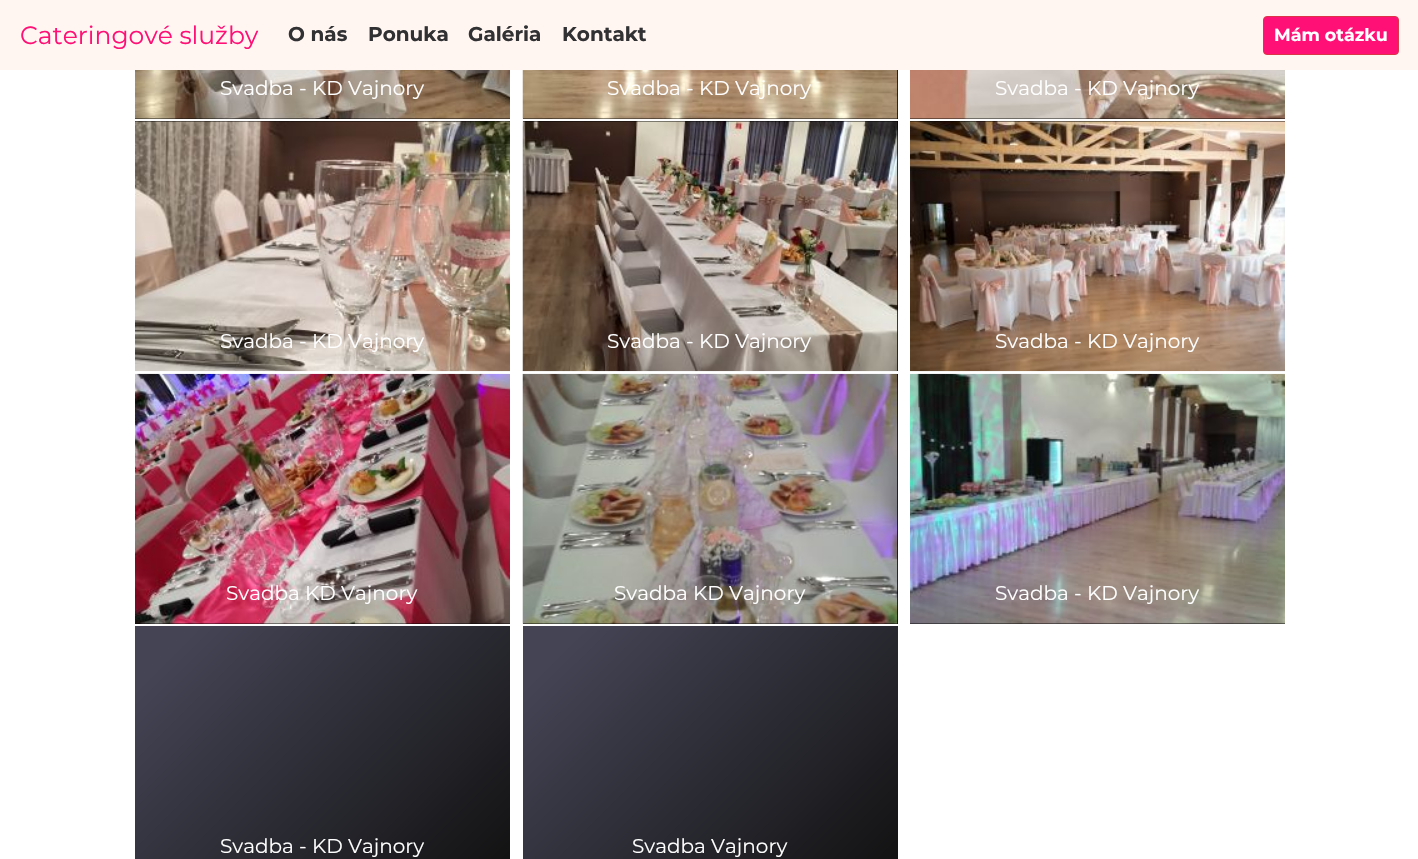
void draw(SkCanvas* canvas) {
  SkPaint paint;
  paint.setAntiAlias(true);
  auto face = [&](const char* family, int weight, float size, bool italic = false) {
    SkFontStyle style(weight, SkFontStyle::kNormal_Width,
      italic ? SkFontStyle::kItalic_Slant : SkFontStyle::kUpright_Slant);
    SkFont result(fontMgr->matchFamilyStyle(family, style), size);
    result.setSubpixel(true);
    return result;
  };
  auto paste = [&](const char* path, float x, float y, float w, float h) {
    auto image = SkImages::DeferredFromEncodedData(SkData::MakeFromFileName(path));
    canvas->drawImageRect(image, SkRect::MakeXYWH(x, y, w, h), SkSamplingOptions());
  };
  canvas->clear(0xffffffff);
  paint.setColor(0xfffff5f1);
  canvas->drawRect(SkRect::MakeXYWH(0, 0, 1418, 70), paint);
  paint.setColor(0xffff1076);
  canvas->drawRoundRect(SkRect::MakeXYWH(1263.5f, 16.5f, 135, 38), 3.5f, 3.5f, paint);
  paint.setStroke(true);
  paint.setStrokeWidth(1);
  paint.setColor(0xffdc3545);
  canvas->drawRoundRect(SkRect::MakeXYWH(1263.5f, 16.5f, 135, 38), 3.5f, 3.5f, paint);
  paint.setStroke(false);
  paint.setColor(0xff000000);
  canvas->drawRect(SkRect::MakeXYWH(135, 118, 375, 1), paint);
  paste("img/1.png", 135, 70, 375, 49);
  canvas->drawRect(SkRect::MakeXYWH(523, 70, 375, 49), paint);
  paste("img/2.png", 522, 70, 376, 49);
  canvas->drawRect(SkRect::MakeXYWH(910, 118, 375, 1), paint);
  paste("img/3.png", 910, 70, 375, 49);
  canvas->drawRect(SkRect::MakeXYWH(135, 121, 375, 1), paint);
  paste("img/4.png", 135, 121, 375, 251);
  canvas->drawRect(SkRect::MakeXYWH(523, 121, 375, 250), paint);
  paste("img/5.png", 522, 121, 376, 251);
  canvas->drawRect(SkRect::MakeXYWH(910, 121, 375, 1), paint);
  paste("img/6.png", 910, 121, 375, 251);
  canvas->drawRect(SkRect::MakeXYWH(135, 623, 375, 1), paint);
  paste("img/7.png", 135, 373, 375, 251);
  canvas->drawRect(SkRect::MakeXYWH(523, 374, 375, 250), paint);
  paste("img/8.png", 522, 373, 376, 251);
  canvas->drawRect(SkRect::MakeXYWH(910, 623, 375, 1), paint);
  paste("img/9.png", 910, 373, 375, 251);
  {
    const SkColor colors[] = {0xff111111, 0xff444455};
    const float stops[] = {0, 0.9f};
    const SkPoint ends[] = {{479, 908}, {166, 595}};
    paint.setShader(SkGradientShader::MakeLinear(ends, colors, stops, 2, SkTileMode::kClamp));
    paint.setAlpha(255);
  }
  canvas->drawRect(SkRect::MakeXYWH(135, 626, 375, 233), paint);
  {
    const SkColor colors[] = {0xff111111, 0xff444455};
    const float stops[] = {0, 0.9f};
    const SkPoint ends[] = {{866, 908}, {554, 595}};
    paint.setShader(SkGradientShader::MakeLinear(ends, colors, stops, 2, SkTileMode::kClamp));
    paint.setAlpha(255);
  }
  canvas->drawRect(SkRect::MakeXYWH(523, 626, 375, 233), paint);
  auto f0 = face("Montserrat", 400, 25);
  paint.setShader(nullptr);
  paint.setColor(0xffff1076);
  canvas->drawString("Cateringové služby", 20, 44, f0, paint);
  auto f1 = face("Montserrat", 700, 20);
  paint.setColor(0xff313133);
  {
    const struct { const char* s; float x, y; } items[] = {
      {"O nás", 288, 41},
      {"Ponuka", 368, 41},
      {"Galéria", 468, 41},
      {"Kontakt", 562, 41},
    };
    for (auto [s, x, y] : items) {
      canvas->drawString(s, x, y, f1, paint);
    }
  }
  auto f2 = face("Montserrat", 700, 17.5f);
  paint.setColor(0xffffffff);
  canvas->drawString("Mám otázku", 1274, 41, f2, paint);
  auto f3 = face("Montserrat", 400, 20);
  {
    const struct { const char* s; float x, y; } items[] = {
      {"Svadba - KD Vajnory", 220, 95},
      {"Svadba - KD Vajnory", 607, 95},
      {"Svadba - KD Vajnory", 995, 95},
      {"Svadba - KD Vajnory", 220, 348},
      {"Svadba - KD Vajnory", 607, 348},
      {"Svadba - KD Vajnory", 995, 348},
      {"Svadba KD Vajnory", 226, 600},
      {"Svadba KD Vajnory", 614, 600},
      {"Svadba - KD Vajnory", 995, 600},
      {"Svadba - KD Vajnory", 220, 853},
      {"Svadba Vajnory", 632, 853},
    };
    for (auto [s, x, y] : items) {
      canvas->drawString(s, x, y, f3, paint);
    }
  }
}
